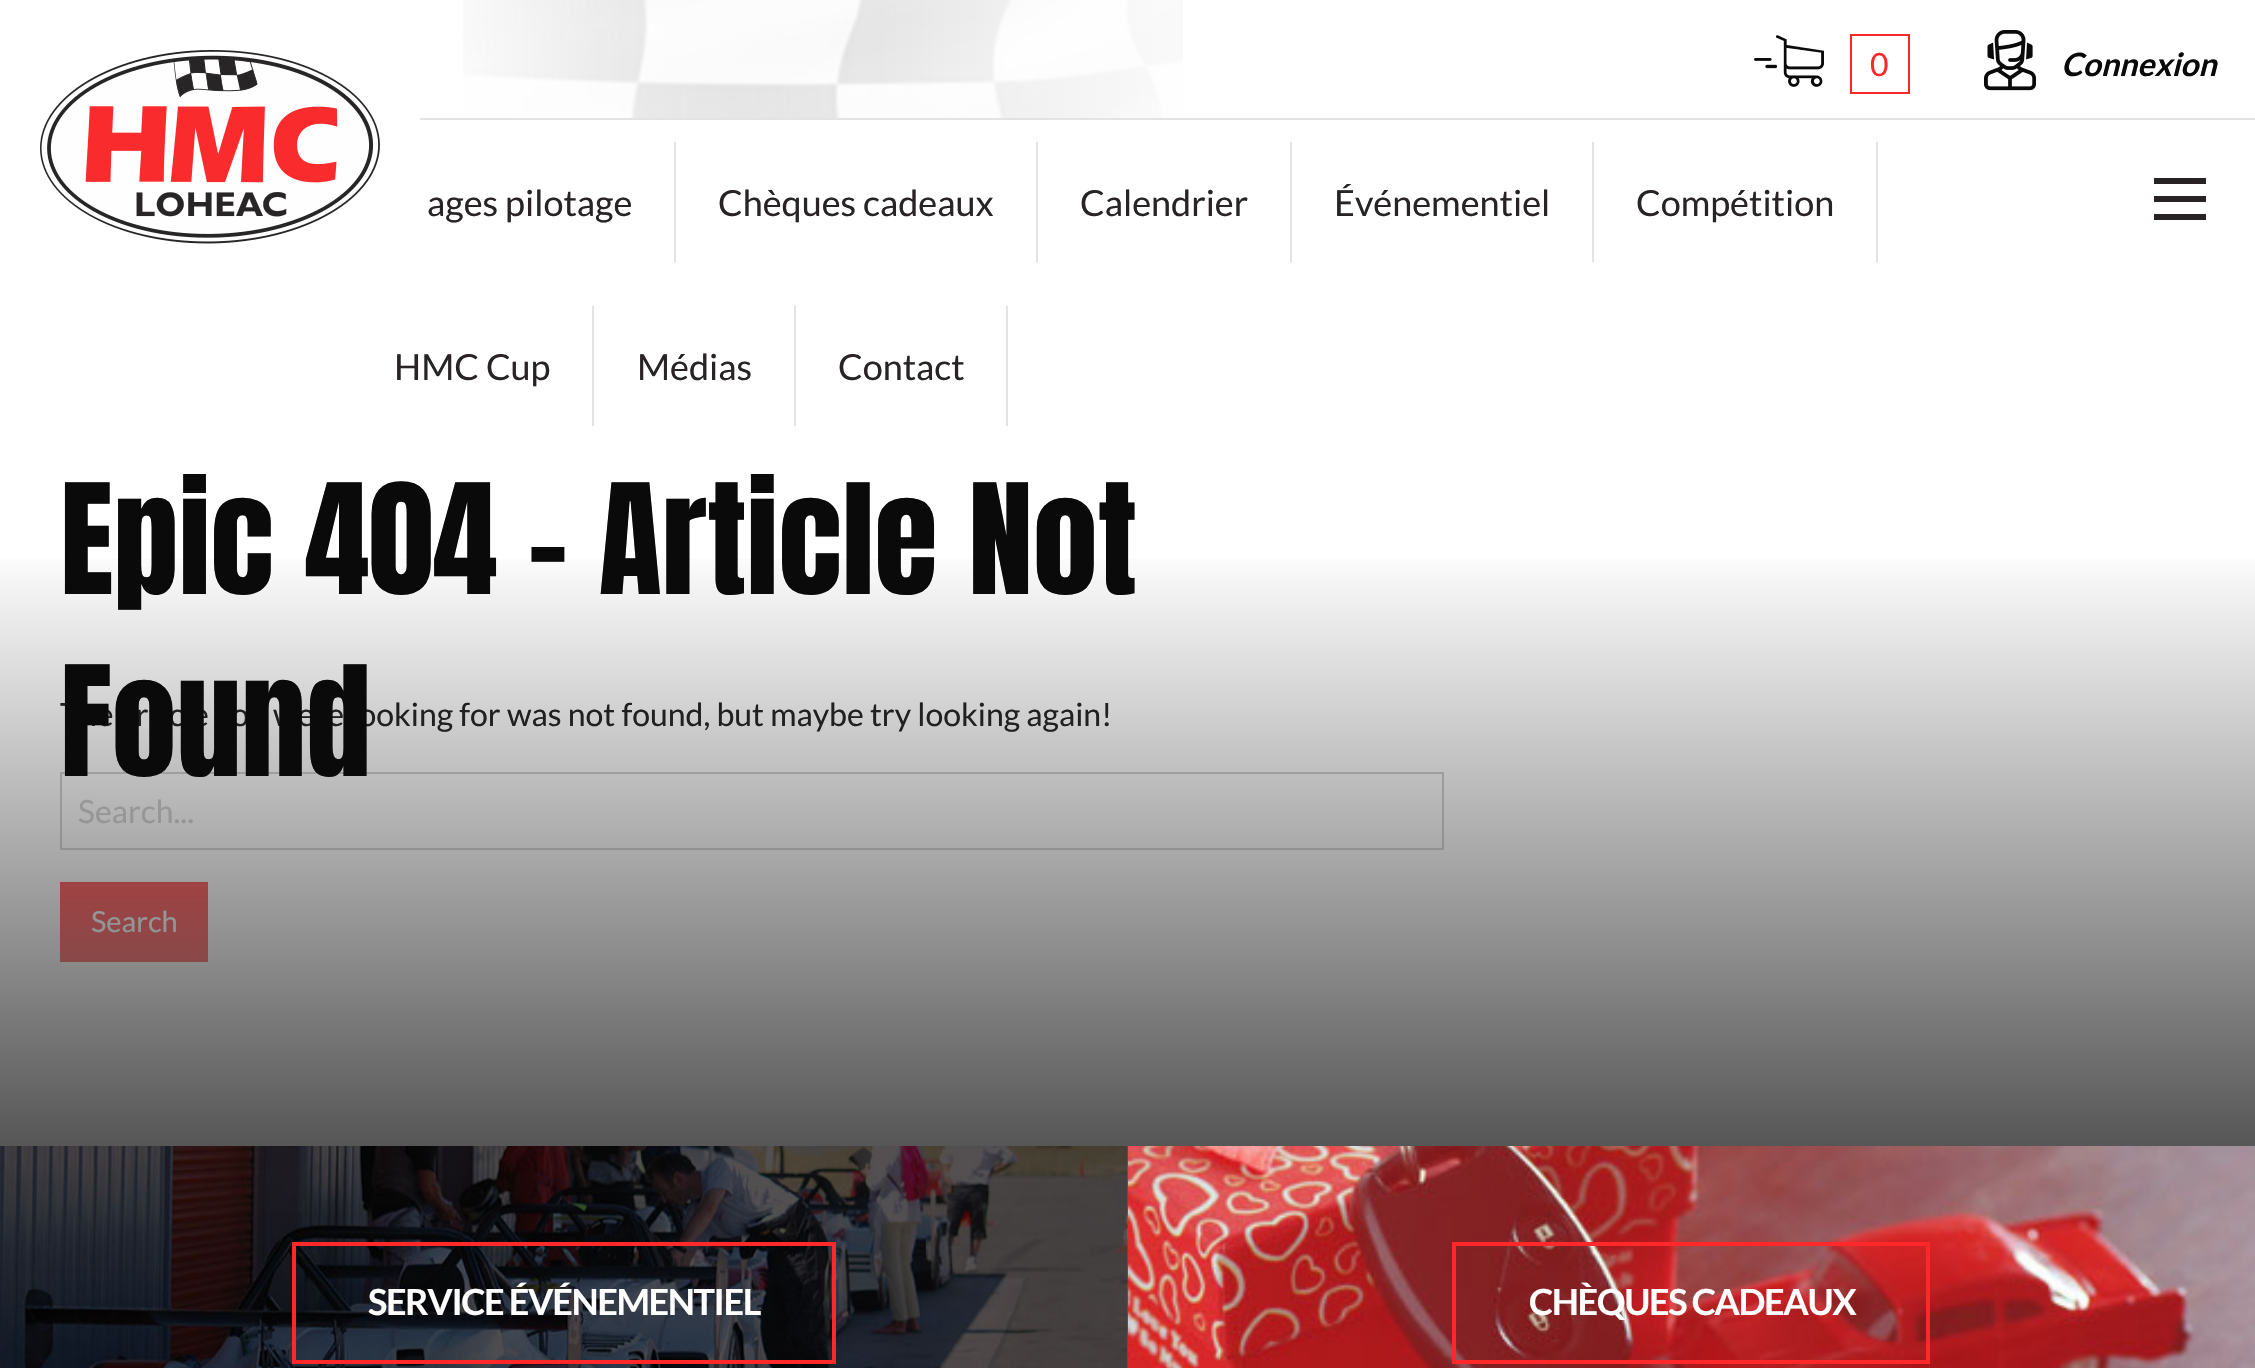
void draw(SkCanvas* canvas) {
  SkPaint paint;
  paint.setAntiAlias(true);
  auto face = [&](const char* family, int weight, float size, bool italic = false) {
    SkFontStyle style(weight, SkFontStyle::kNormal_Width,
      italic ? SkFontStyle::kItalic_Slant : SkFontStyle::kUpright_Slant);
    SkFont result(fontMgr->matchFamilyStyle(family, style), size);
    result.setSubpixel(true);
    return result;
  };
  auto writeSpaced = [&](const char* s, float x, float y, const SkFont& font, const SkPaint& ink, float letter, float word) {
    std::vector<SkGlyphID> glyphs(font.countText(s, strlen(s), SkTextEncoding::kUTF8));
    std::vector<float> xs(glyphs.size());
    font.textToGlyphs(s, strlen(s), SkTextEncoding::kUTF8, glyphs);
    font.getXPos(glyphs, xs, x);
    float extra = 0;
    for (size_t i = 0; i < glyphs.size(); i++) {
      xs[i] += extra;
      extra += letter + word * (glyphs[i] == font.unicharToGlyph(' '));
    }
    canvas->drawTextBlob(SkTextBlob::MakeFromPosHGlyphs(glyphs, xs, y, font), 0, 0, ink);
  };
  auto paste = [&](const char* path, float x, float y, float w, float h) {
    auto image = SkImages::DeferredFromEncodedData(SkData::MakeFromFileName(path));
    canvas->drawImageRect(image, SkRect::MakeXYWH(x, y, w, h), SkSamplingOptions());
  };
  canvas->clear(0xffffffff);
  paste("img/1.png", 40, 50, 340, 194);
  paste("img/2.png", 463, 0, 720, 118);
  paint.setColor(0xffe3e3e3);
  canvas->drawRect(SkRect::MakeXYWH(420, 118, 1835, 2), paint);
  paste("img/3.png", 1754, 35, 70, 52);
  paint.setStroke(true);
  paint.setStrokeWidth(2);
  paint.setColor(0xfffc282a);
  canvas->drawRect(SkRect::MakeXYWH(1851, 35, 58, 58), paint);
  paste("img/4.png", 1984, 30, 52, 61);
  paint.setStroke(false);
  {
    const struct { float x, y, w, h; SkColor color; } items[] = {
      {674, 142, 2, 120, 0xffe3e3e3},
      {1036, 142, 2, 120, 0xffe3e3e3},
      {1290, 142, 2, 120, 0xffe3e3e3},
      {1592, 142, 2, 120, 0xffe3e3e3},
      {1876, 142, 2, 120, 0xffe3e3e3},
      {592, 306, 2, 120, 0xffe3e3e3},
      {794, 306, 2, 120, 0xffe3e3e3},
      {1006, 306, 2, 120, 0xffe3e3e3},
      {2154, 214, 52, 6, 0xff282425},
      {2154, 196, 52, 6, 0xff282425},
      {2154, 178, 52, 6, 0xff282425},
    };
    for (auto [x, y, w, h, color] : items) {
      paint.setColor(color);
      canvas->drawRect(SkRect::MakeXYWH(x, y, w, h), paint);
    }
  }
  paint.setStroke(true);
  paint.setColor(0xffcacaca);
  canvas->drawRect(SkRect::MakeXYWH(61, 773, 1382, 76), paint);
  paint.setStroke(false);
  paint.setColor(0xfffc282a);
  canvas->drawRect(SkRect::MakeXYWH(60, 882, 148, 80), paint);
  paste("img/5.png", 0, 1146, 1128, 222);
  paint.setStroke(true);
  paint.setStrokeWidth(4);
  canvas->drawRect(SkRect::MakeXYWH(294, 1244, 540, 118), paint);
  paste("img/6.png", 1128, 1146, 1127, 222);
  canvas->drawRect(SkRect::MakeXYWH(1454, 1244, 474, 118), paint);
  auto f0 = face("Lato", 400, 32);
  paint.setStroke(false);
  canvas->drawString("0", 1870, 76, f0, paint);
  auto f1 = face("Lato", 700, 32, true);
  paint.setColor(0xff0a0a0a);
  canvas->drawString("Connexion", 2061, 76, f1, paint);
  auto f2 = face("Lato", 400, 36);
  paint.setColor(0xff282425);
  {
    const struct { const char* s; float x, y; } items[] = {
      {"ages pilotage", 427, 216},
      {"Chèques cadeaux", 718, 216},
      {"Calendrier", 1080, 216},
      {"Événementiel", 1334, 216},
      {"Compétition", 1636, 216},
      {"HMC Cup", 394, 380},
      {"Médias", 637, 380},
      {"Contact", 838, 380},
    };
    for (auto [s, x, y] : items) {
      canvas->drawString(s, x, y, f2, paint);
    }
  }
  paint.setColor(0xff0a0a0a);
  canvas->drawString("The article you were looking for was not found, but maybe try looking again!", 60, 726, f0, paint);
  paint.setColor(0xffcacaca);
  canvas->drawString("Search...", 78, 823, f0, paint);
  auto f3 = face("Lato", 400, 29);
  paint.setColor(0xfffefefe);
  canvas->drawString("Search", 91, 932, f3, paint);
  {
    const SkColor colors[] = {0x00565656, 0xff565656};
    const float stops[] = {0, 1};
    const SkPoint ends[] = {{1128, 546}, {1128, 1146}};
    paint.setShader(SkGradientShader::MakeLinear(ends, colors, stops, 2, SkTileMode::kClamp));
    paint.setAlpha(255);
  }
  canvas->drawRect(SkRect::MakeXYWH(0, 559, 2255, 587), paint);
  auto f4 = face("Anton", 400, 130);
  paint.setShader(nullptr);
  paint.setColor(0xff0a0a0a);
  canvas->drawString("Found", 60, 776, f4, paint);
  canvas->drawString("Epic 404 - Article Not", 60, 594, f4, paint);
  auto f5 = face("Lato", 700, 36);
  paint.setColor(0xfffefefe);
  writeSpaced("SERVICE ÉVÉNEMENTIEL", 368, 1315, f5, paint, -1.4f, 0);
  writeSpaced("CHÈQUES CADEAUX", 1529, 1315, f5, paint, -1.4f, 0);
}
